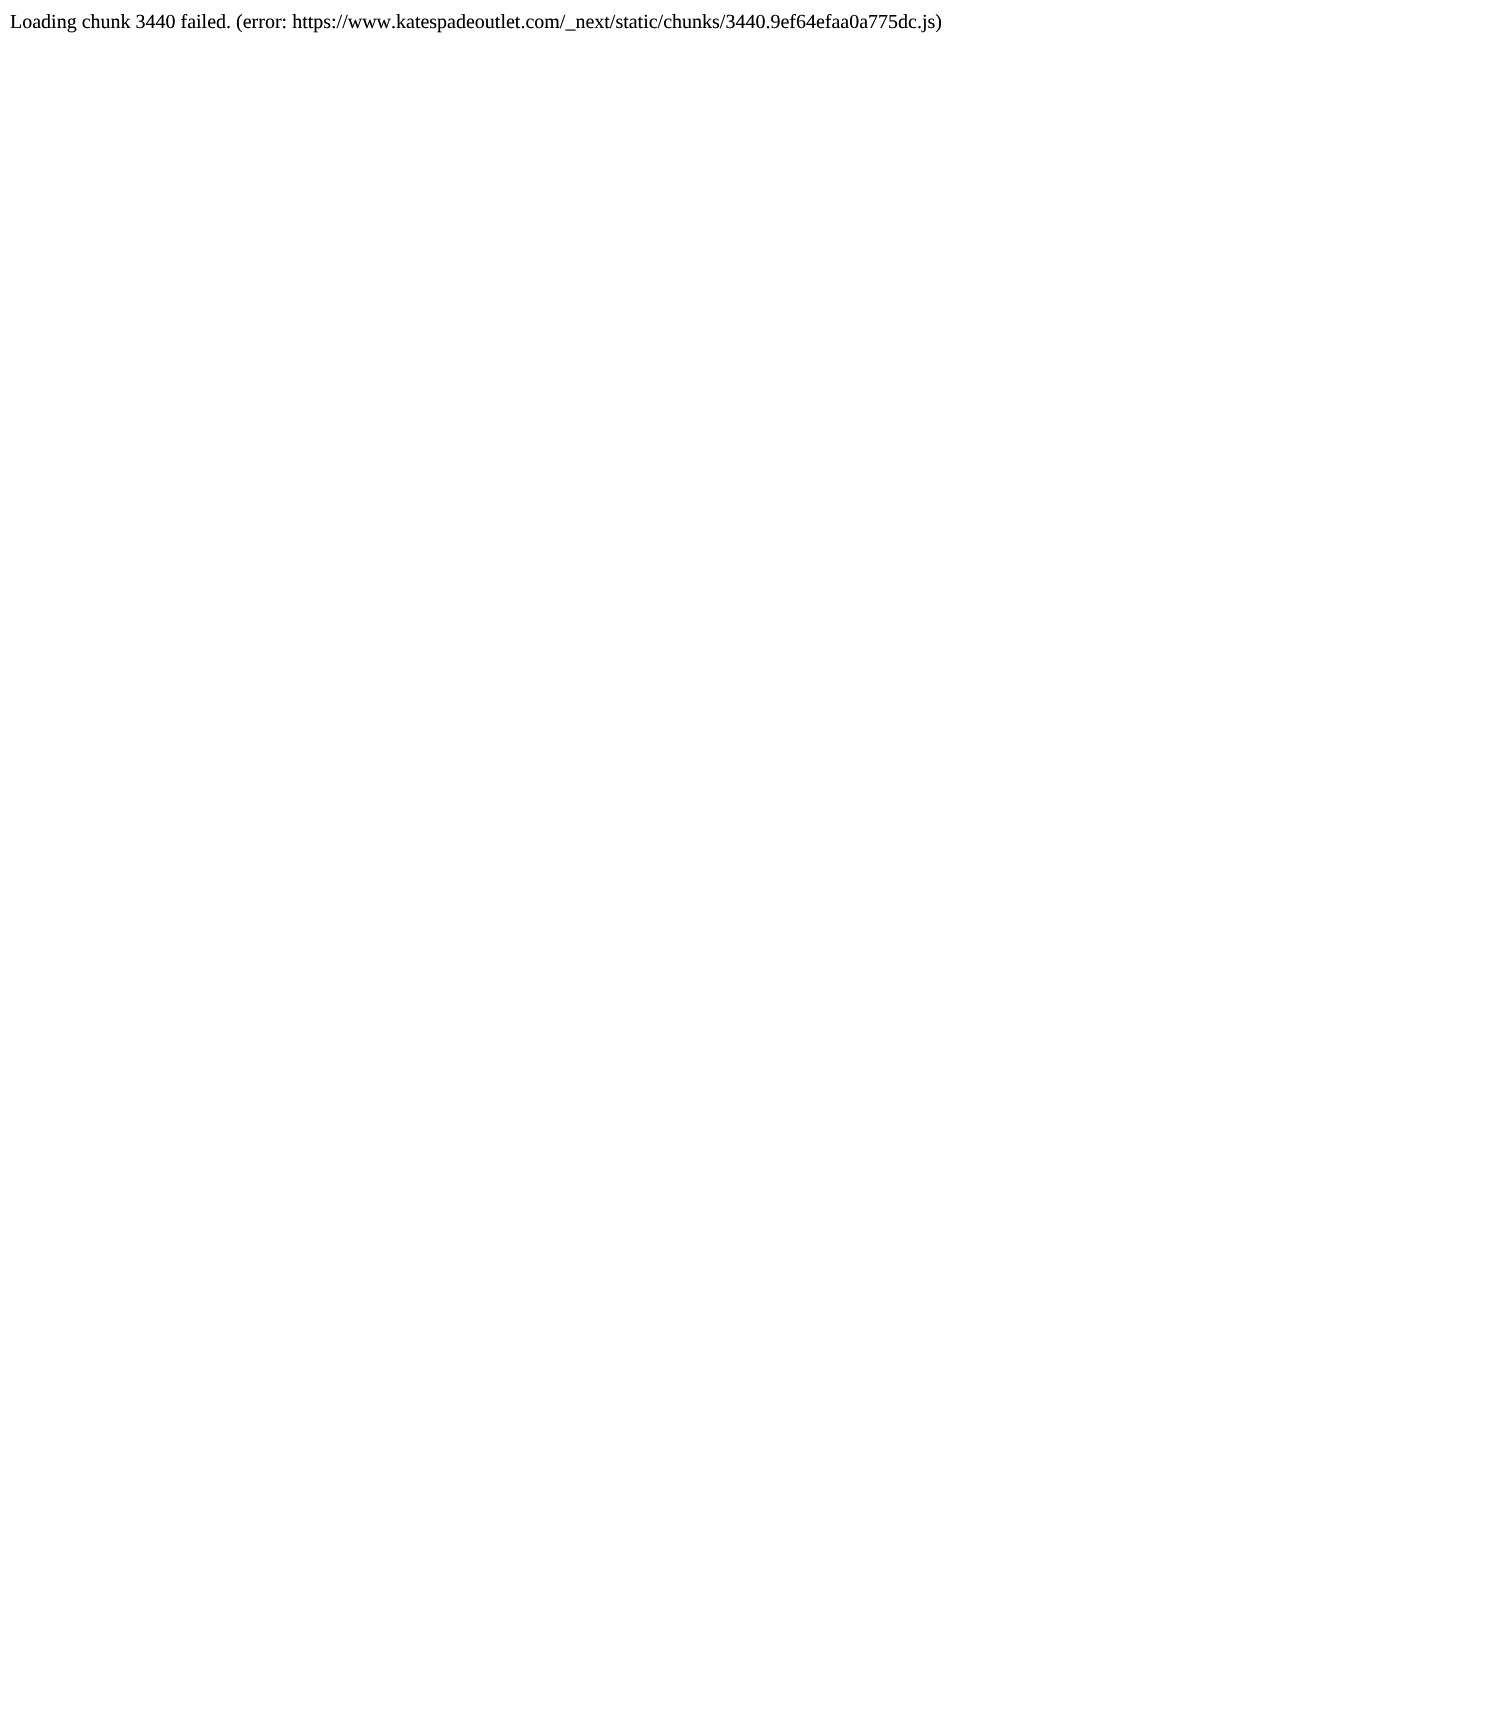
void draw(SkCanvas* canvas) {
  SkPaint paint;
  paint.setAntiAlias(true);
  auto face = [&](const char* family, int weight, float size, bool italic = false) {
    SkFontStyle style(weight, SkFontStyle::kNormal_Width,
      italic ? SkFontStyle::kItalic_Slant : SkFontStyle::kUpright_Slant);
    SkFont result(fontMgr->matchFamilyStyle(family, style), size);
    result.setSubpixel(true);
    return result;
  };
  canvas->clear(0xffffffff);
  auto f0 = face("Liberation Serif", 400, 20);
  paint.setColor(0xff000000);
  canvas->drawString("Loading chunk 3440 failed. (error: https://www.katespadeoutlet.com/_next/static/chunks/3440.9ef64efaa0a775dc.js)", 10, 28, f0, paint);
}
